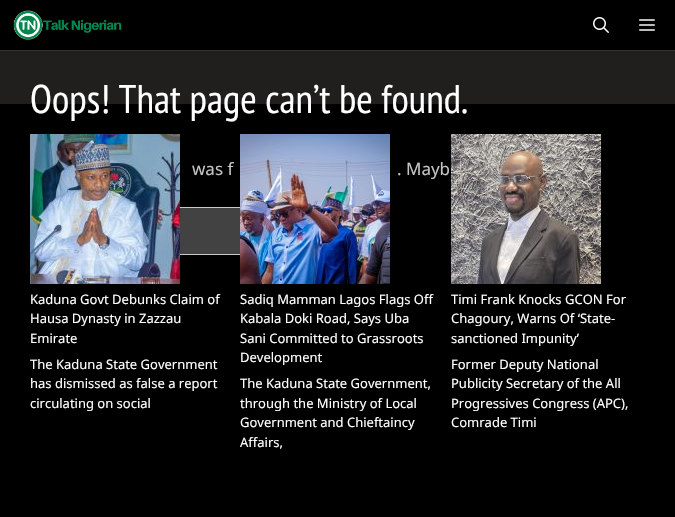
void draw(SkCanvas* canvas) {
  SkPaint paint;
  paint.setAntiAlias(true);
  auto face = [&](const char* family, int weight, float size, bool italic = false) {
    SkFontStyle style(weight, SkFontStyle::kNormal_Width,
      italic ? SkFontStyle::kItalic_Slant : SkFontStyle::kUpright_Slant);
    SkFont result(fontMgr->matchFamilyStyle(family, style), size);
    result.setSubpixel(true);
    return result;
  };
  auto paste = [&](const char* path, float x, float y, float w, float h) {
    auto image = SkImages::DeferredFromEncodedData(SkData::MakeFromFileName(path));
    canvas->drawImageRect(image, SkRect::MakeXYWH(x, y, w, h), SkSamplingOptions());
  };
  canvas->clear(0xff000000);
  paint.setColor(0xff333333);
  canvas->drawRect(SkRect::MakeXYWH(0, 50, 675, 1), paint);
  paste("img/1.png", 13, 10, 109, 30);
  paste("img/2.png", 593, 17, 16, 16);
  paste("img/3.png", 639, 19, 16, 12);
  paint.setColor(0xff201f1d);
  canvas->drawRect(SkRect::MakeXYWH(0, 51, 675, 53), paint);
  paint.setColor(0xff424242);
  canvas->drawRect(SkRect::MakeXYWH(180, 208, 60, 46), paint);
  paint.setStroke(true);
  paint.setStrokeWidth(1);
  paint.setColor(0xffc9c9c9);
  canvas->drawRect(SkRect::MakeXYWH(30.5f, 207.5f, 279, 47), paint);
  paste("img/4.png", 30, 134, 150, 150);
  paste("img/5.png", 240, 134, 150, 150);
  paste("img/6.png", 451, 134, 150, 150);
  auto f0 = face("PT Sans Narrow", 400, 40);
  paint.setStroke(false);
  paint.setColor(0xffffffff);
  canvas->drawString("Oops! That page can’t be found.", 30, 113, f0, paint);
  auto f1 = face("Noto Sans", 400, 17);
  paint.setColor(0xffc4c4c4);
  canvas->drawString("was f", 192, 175, f1, paint);
  canvas->drawString(". Mayb", 397, 175, f1, paint);
  auto f2 = face("Noto Sans", 400, 13);
  paint.setColor(0xffffffff);
  {
    const struct { const char* s; float x, y; } items[] = {
      {"Kaduna Govt Debunks Claim of", 30, 304},
      {"Hausa Dynasty in Zazzau", 30, 323},
      {"Emirate", 30, 343},
      {"The Kaduna State Government", 30, 369},
      {"has dismissed as false a report", 30, 388},
      {"circulating on social", 30, 408},
      {"Sadiq Mamman Lagos Flags Off", 240, 304},
      {"Kabala Doki Road, Says Uba", 240, 323},
      {"Sani Committed to Grassroots", 240, 343},
      {"Development", 240, 362},
      {"The Kaduna State Government,", 240, 388},
      {"through the Ministry of Local", 240, 408},
      {"Government and Chieftaincy", 240, 427},
      {"Affairs,", 240, 447},
      {"Timi Frank Knocks GCON For", 451, 304},
      {"Chagoury, Warns Of ‘State-", 451, 323},
      {"sanctioned Impunity’", 451, 343},
      {"Former Deputy National", 451, 369},
      {"Publicity Secretary of the All", 451, 388},
      {"Progressives Congress (APC),", 451, 408},
      {"Comrade Timi", 451, 427},
    };
    for (auto [s, x, y] : items) {
      canvas->drawString(s, x, y, f2, paint);
    }
  }
}
